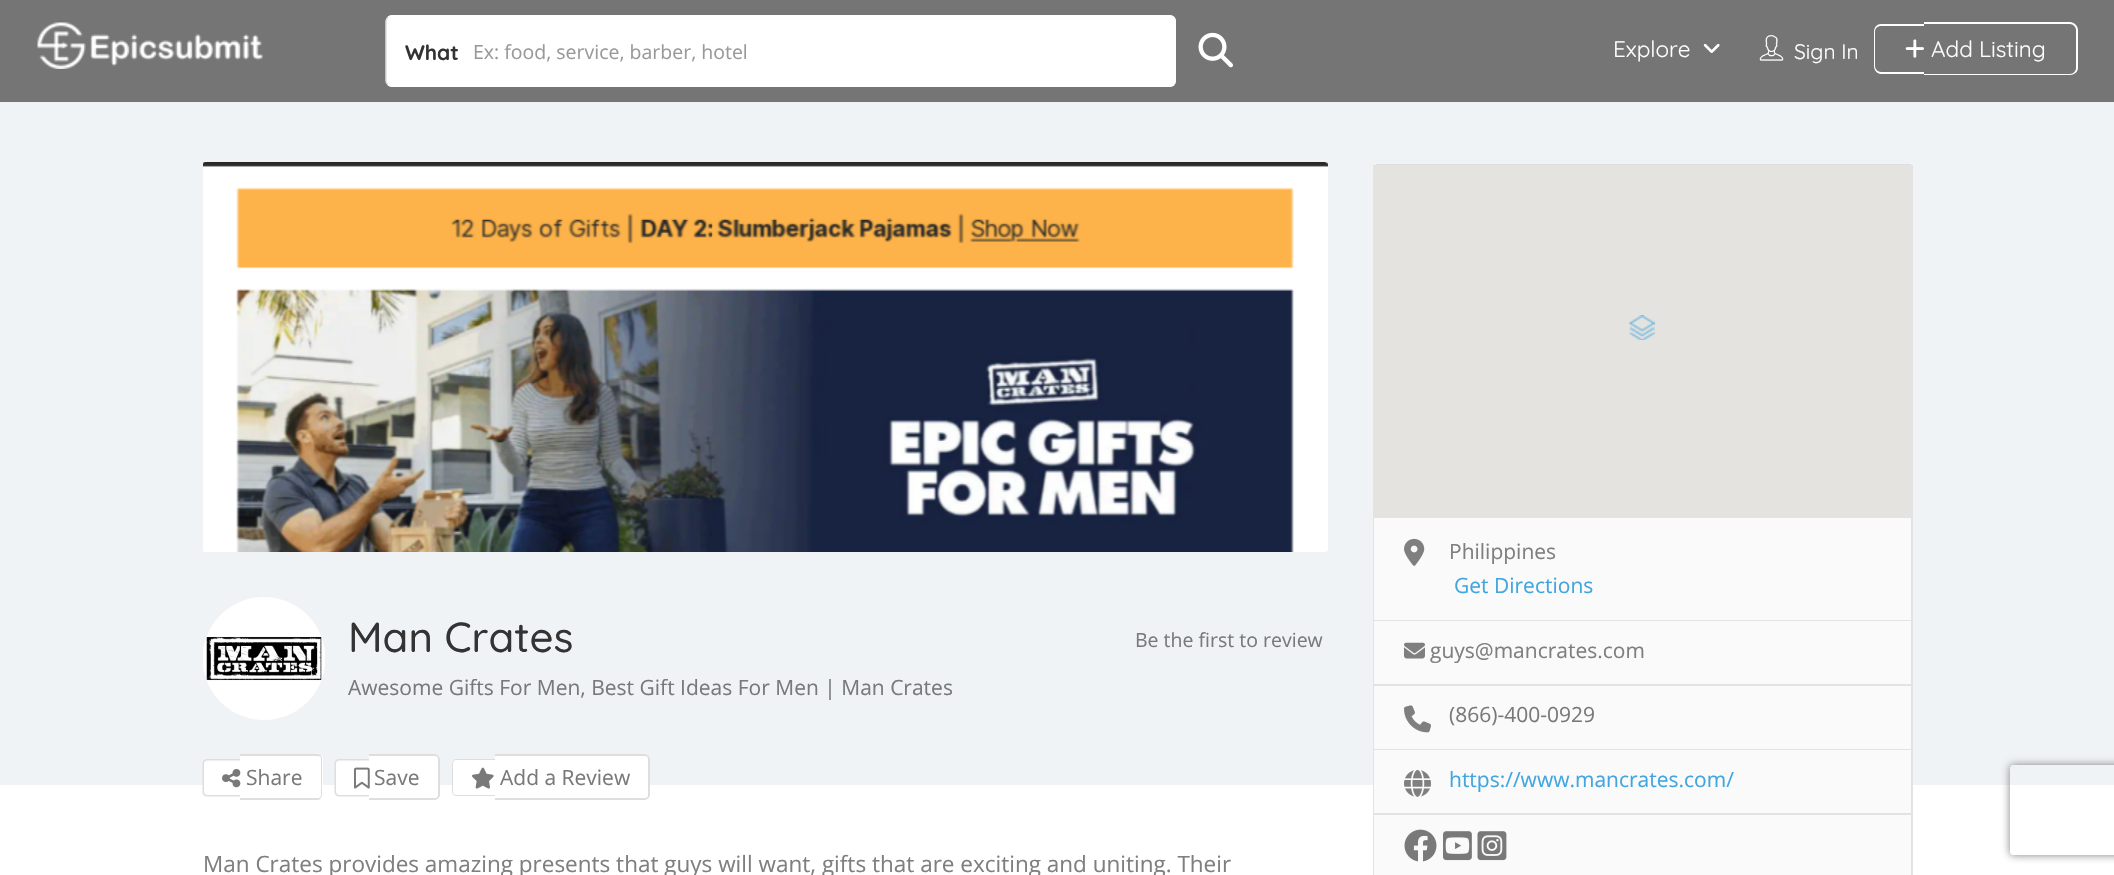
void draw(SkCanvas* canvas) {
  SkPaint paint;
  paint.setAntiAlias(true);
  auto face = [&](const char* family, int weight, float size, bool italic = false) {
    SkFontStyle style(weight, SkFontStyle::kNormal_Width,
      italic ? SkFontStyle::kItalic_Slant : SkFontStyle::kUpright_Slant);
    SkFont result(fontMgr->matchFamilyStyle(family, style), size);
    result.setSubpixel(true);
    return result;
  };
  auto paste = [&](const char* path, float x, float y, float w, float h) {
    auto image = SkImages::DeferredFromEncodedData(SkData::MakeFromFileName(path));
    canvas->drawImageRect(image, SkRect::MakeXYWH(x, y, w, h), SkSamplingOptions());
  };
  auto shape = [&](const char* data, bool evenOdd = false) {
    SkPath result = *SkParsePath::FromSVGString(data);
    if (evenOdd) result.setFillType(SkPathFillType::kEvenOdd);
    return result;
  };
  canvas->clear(0xffffffff);
  paint.setColor(0xff757575);
  canvas->drawRect(SkRect::MakeXYWH(0, 0, 2114, 102), paint);
  paste("img/1.png", 37, 22, 226, 47);
  paint.setColor(0xffffffff);
  canvas->drawRoundRect(SkRect::MakeXYWH(386, 15, 790, 72), 6, 6, paint);
  paint.setStroke(true);
  paint.setStrokeWidth(1.5f);
  canvas->drawPath(shape("M388 17.5C389 16.5 390 16 391.5 16H1170C1171.5 16 1172.5 16.5 1173.5 17.5C1174.5 18.5 1175 19.5 1175 21V81C1175 82.5 1174.5 83.5 1173.5 84.5C1172.5 85.5 1171.5 86 1170 86H391.5C390 86 389 85.5 388 84.5"), paint);
  paint.setColor(0xffdedede);
  canvas->drawPath(shape("M388 84.5C387 83.5 386 82.5 386 81V21C386 19.5 387 18.5 388 17.5"), paint);
  paste("img/2.png", 1198, 32, 35, 36);
  paste("img/3.png", 1703, 43, 17, 10);
  paste("img/4.png", 1759, 35, 25, 26);
  paint.setStroke(false);
  paint.setColor(0xffffffff);
  canvas->drawPath(shape("M1881 24H1924V74H1881C1877 74 1874 70 1874 66V32C1874 27 1877 24 1881 24ZM1881 26H1924V72H1881C1878 72 1875 69 1875 66V32C1875 28 1878 26 1881 26Z", true), paint);
  canvas->drawPath(shape("M1924 22H2070C2074 22 2078 26 2078 30V68C2078 72 2074 75 2070 75H1924ZM1924 24H2070C2073 24 2076 27 2076 30V68C2076 71 2073 74 2070 74H1924Z", true), paint);
  paste("img/5.png", 1905, 39, 19, 19);
  {
    const struct { float x, y, w, h; SkColor color; } items[] = {
      {0, 102, 2114, 683, 0xfff0f3f6},
      {1376, 164, 535, 1, 0xffdedede},
      {1374, 165, 537, 353, 0xffe5e3df},
    };
    for (auto [x, y, w, h, color] : items) {
      paint.setColor(color);
      canvas->drawRect(SkRect::MakeXYWH(x, y, w, h), paint);
    }
  }
  paste("img/6.png", 1629, 315, 26, 25);
  {
    const struct { float x, y, w, h; SkColor color; } items[] = {
      {1911, 165, 2, 710, 0xffe3e3e3},
      {1373, 165, 1, 710, 0xffe3e3e3},
      {1374, 518, 537, 102, 0xfffafafa},
      {1374, 620, 537, 1, 0xffe3e3e3},
    };
    for (auto [x, y, w, h, color] : items) {
      paint.setColor(color);
      canvas->drawRect(SkRect::MakeXYWH(x, y, w, h), paint);
    }
  }
  paste("img/7.png", 1404, 538, 21, 28);
  paint.setColor(0xfffafafa);
  canvas->drawRect(SkRect::MakeXYWH(1374, 621, 537, 63), paint);
  paint.setColor(0xffe3e3e3);
  canvas->drawRect(SkRect::MakeXYWH(1374, 684, 537, 2), paint);
  paste("img/8.png", 1404, 642, 21, 17);
  paint.setColor(0xfffafafa);
  canvas->drawRect(SkRect::MakeXYWH(1374, 686, 537, 63), paint);
  paint.setColor(0xffe3e3e3);
  canvas->drawRect(SkRect::MakeXYWH(1374, 749, 537, 1), paint);
  paste("img/9.png", 1404, 705, 27, 28);
  paint.setColor(0xfffafafa);
  canvas->drawRect(SkRect::MakeXYWH(1374, 750, 537, 63), paint);
  paint.setColor(0xffe3e3e3);
  canvas->drawRect(SkRect::MakeXYWH(1374, 813, 537, 2), paint);
  paste("img/10.png", 1404, 769, 27, 28);
  paint.setColor(0xfffafafa);
  canvas->drawRect(SkRect::MakeXYWH(1374, 815, 537, 60), paint);
  paste("img/11.png", 1404, 829, 33, 33);
  paste("img/12.png", 1443, 831, 29, 30);
  paste("img/13.png", 1477, 831, 30, 30);
  paste("img/14.png", 203, 162, 1125, 390);
  paste("img/15.png", 203, 597, 122, 123);
  paint.setColor(0xffffffff);
  canvas->drawPath(shape("M208 759H240V797H208C205 797 203 795 203 792V764C203 761 205 759 208 759Z"), paint);
  paint.setColor(0xffdedede);
  canvas->drawPath(shape("M207 759H240V796.5H207C204.5 796.5 202.5 794.5 202.5 792V763.5C202.5 761 204.5 759 207 759ZM207 760.5H240V795H207C205.5 795 204 793.5 204 792V763.5C204 762 205.5 760.5 207 760.5Z", true), paint);
  paint.setColor(0xffffffff);
  canvas->drawPath(shape("M240 755H318C321 755 323 757 323 760V795C323 798 321 800 318 800H240Z"), paint);
  paint.setColor(0xffdedede);
  canvas->drawPath(shape("M240 754H318C320 754 322 757 322 759V795C322 797 320 800 318 800H240ZM240 756H318C320 756 321 757 321 759V795C321 797 320 798 318 798H240Z", true), paint);
  paste("img/16.png", 222, 769, 19, 19);
  paint.setColor(0xffffffff);
  canvas->drawPath(shape("M340 759H369V797H340C337 797 335 795 335 792V764C335 761 337 759 340 759Z"), paint);
  paint.setColor(0xffdedede);
  canvas->drawPath(shape("M339 759H369V796.5H339C336.5 796.5 334.5 794.5 334.5 792V763.5C334.5 761 336.5 759 339 759ZM339 760.5H369V795H339C337.5 795 336 793.5 336 792V763.5C336 762 337.5 760.5 339 760.5Z", true), paint);
  paint.setColor(0xffffffff);
  canvas->drawPath(shape("M369 755H435C438 755 440 757 440 760V795C440 798 438 800 435 800H369Z"), paint);
  paint.setColor(0xffdedede);
  canvas->drawPath(shape("M369 754H435C437 754 440 757 440 759V795C440 797 437 800 435 800H369ZM369 756H435C437 756 438 757 438 759V795C438 797 437 798 435 798H369Z", true), paint);
  paste("img/17.png", 354, 767, 16, 22);
  paint.setColor(0xffffffff);
  canvas->drawPath(shape("M457 759H495V797H457C454 797 452 795 452 792V764C452 761 454 759 457 759Z"), paint);
  paint.setColor(0xffdedede);
  canvas->drawPath(shape("M456 759H495V796H456C454 796 452 794 452 792V764C452 761 454 759 456 759ZM456 760H495V795H456C454 795 453 794 453 792V764C453 762 454 760 456 760Z", true), paint);
  paint.setColor(0xffffffff);
  canvas->drawPath(shape("M495 755H645C648 755 650 757 650 760V795C650 798 648 800 645 800H495Z"), paint);
  paint.setColor(0xffdedede);
  canvas->drawPath(shape("M495 754H645C647 754 650 757 650 759V795C650 797 647 800 645 800H495ZM495 756H645C647 756 648 757 648 759V795C648 797 647 798 645 798H495Z", true), paint);
  paste("img/18.png", 472, 767, 22, 22);
  canvas->save();
  canvas->clipPath(shape("M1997 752H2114V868H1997ZM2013 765H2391C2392.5 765 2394 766.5 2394 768V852C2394 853.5 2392.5 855 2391 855H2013C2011.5 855 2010 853.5 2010 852V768C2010 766.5 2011.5 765 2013 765Z", true), true);
  paint.setColor(0xff808080);
  paint.setMaskFilter(SkMaskFilter::MakeBlur(kNormal_SkBlurStyle, 4));
  canvas->drawRoundRect(SkRect::MakeXYWH(2010, 765, 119, 90), 3, 3, paint);
  paint.setMaskFilter(nullptr);
  canvas->restore();
  auto f0 = face("Quicksand", 700, 21);
  paint.setColor(0xff333333);
  canvas->drawString("What", 405, 60, f0, paint);
  auto f1 = face("Open Sans", 400, 19.5f);
  paint.setColor(0xff999999);
  canvas->drawString("Ex: food, service, barber, hotel", 473, 59, f1, paint);
  auto f2 = face("Quicksand", 400, 22.5f);
  paint.setColor(0xffffffff);
  canvas->drawString("Explore", 1613, 57, f2, paint);
  auto f3 = face("Quicksand", 400, 21);
  canvas->drawString("Sign In", 1794, 59, f3, paint);
  canvas->drawString("Add Listing", 1931, 57, f2, paint);
  auto f4 = face("Open Sans", 400, 21);
  paint.setColor(0xff7f7f7f);
  canvas->drawString("Philippines", 1449, 559, f4, paint);
  paint.setColor(0xff41a6df);
  canvas->drawString("Get Directions", 1454, 593, f4, paint);
  paint.setColor(0xff7f7f7f);
  canvas->drawString("guys@mancrates.com", 1430, 658, f4, paint);
  paint.setColor(0xff797979);
  canvas->drawString("(866)-400-0929", 1449, 722, f4, paint);
  paint.setColor(0xff41a6df);
  canvas->drawString("https://www.mancrates.com/", 1449, 787, f4, paint);
  auto f5 = face("Open Sans", 400, 22.5f);
  paint.setColor(0xff7f7f7f);
  canvas->drawString("Man Crates provides amazing presents that guys will want, gifts that are exciting and uniting. Their", 203, 872, f5, paint);
  auto f6 = face("Quicksand", 500, 42);
  paint.setColor(0xff333333);
  canvas->drawString("Man Crates", 348, 652, f6, paint);
  paint.setColor(0xff797979);
  canvas->drawString("Awesome Gifts For Men, Best Gift Ideas For Men | Man Crates", 348, 695, f4, paint);
  canvas->drawString("Be the first to review", 1135, 647, f1, paint);
  {
    const struct { const char* s; float x, y; } items[] = {
      {"Share", 246, 785},
      {"Save", 374, 785},
      {"Add a Review", 500, 785},
    };
    for (auto [s, x, y] : items) {
      canvas->drawString(s, x, y, f4, paint);
    }
  }
}
